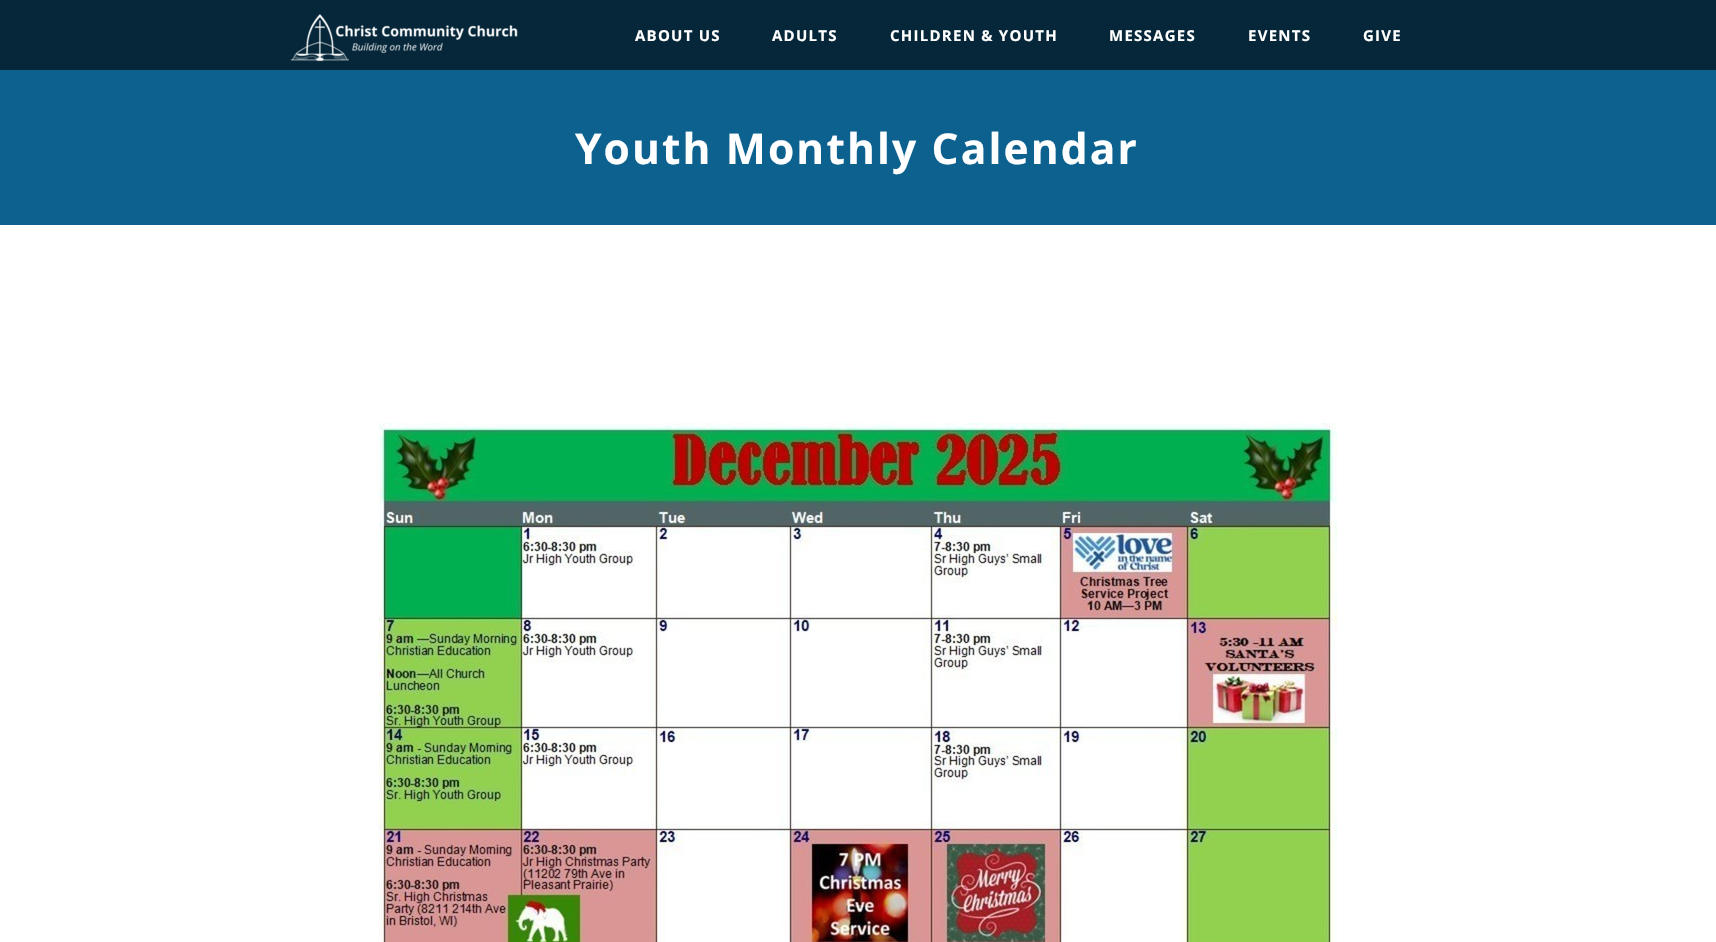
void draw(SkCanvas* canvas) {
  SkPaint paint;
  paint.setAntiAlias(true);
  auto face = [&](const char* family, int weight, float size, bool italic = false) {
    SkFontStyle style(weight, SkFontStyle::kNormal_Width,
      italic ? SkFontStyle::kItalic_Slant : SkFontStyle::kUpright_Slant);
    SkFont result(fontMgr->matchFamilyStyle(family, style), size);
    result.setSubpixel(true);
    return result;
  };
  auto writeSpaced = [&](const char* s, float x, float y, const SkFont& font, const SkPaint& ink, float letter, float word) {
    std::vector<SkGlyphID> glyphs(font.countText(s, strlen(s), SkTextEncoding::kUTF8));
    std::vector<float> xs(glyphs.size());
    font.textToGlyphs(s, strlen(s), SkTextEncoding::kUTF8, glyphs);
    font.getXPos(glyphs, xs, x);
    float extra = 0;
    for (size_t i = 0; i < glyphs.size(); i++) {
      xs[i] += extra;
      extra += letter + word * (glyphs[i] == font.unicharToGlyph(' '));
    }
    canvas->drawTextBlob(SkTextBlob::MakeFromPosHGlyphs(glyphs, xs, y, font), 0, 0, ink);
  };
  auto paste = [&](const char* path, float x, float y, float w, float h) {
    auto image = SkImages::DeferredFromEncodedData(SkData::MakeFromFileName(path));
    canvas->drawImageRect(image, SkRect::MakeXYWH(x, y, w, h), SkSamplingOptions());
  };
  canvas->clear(0xff0d618f);
  paint.setColor(0xff052739);
  canvas->drawRect(SkRect::MakeXYWH(0, 0, 1716, 70), paint);
  paste("img/1.png", 290, 14, 228, 48);
  paint.setColor(0xffffffff);
  canvas->drawRect(SkRect::MakeXYWH(0, 225, 1716, 717), paint);
  paste("img/2.png", 379, 423, 958, 519);
  auto f0 = face("Open Sans", 700, 15);
  {
    const struct { const char* s; float x, y; } items[] = {
      {"ABOUT US", 635, 41},
      {"ADULTS", 772, 41},
      {"CHILDREN & YOUTH", 890, 41},
      {"MESSAGES", 1109, 41},
      {"EVENTS", 1248, 41},
      {"GIVE", 1363, 41},
    };
    for (auto [s, x, y] : items) {
      writeSpaced(s, x, y, f0, paint, 1.25f, 0);
    }
  }
  auto f1 = face("Open Sans", 700, 42.5f);
  writeSpaced("Youth Monthly Calendar", 575, 164, f1, paint, 2.1f, 0);
}
